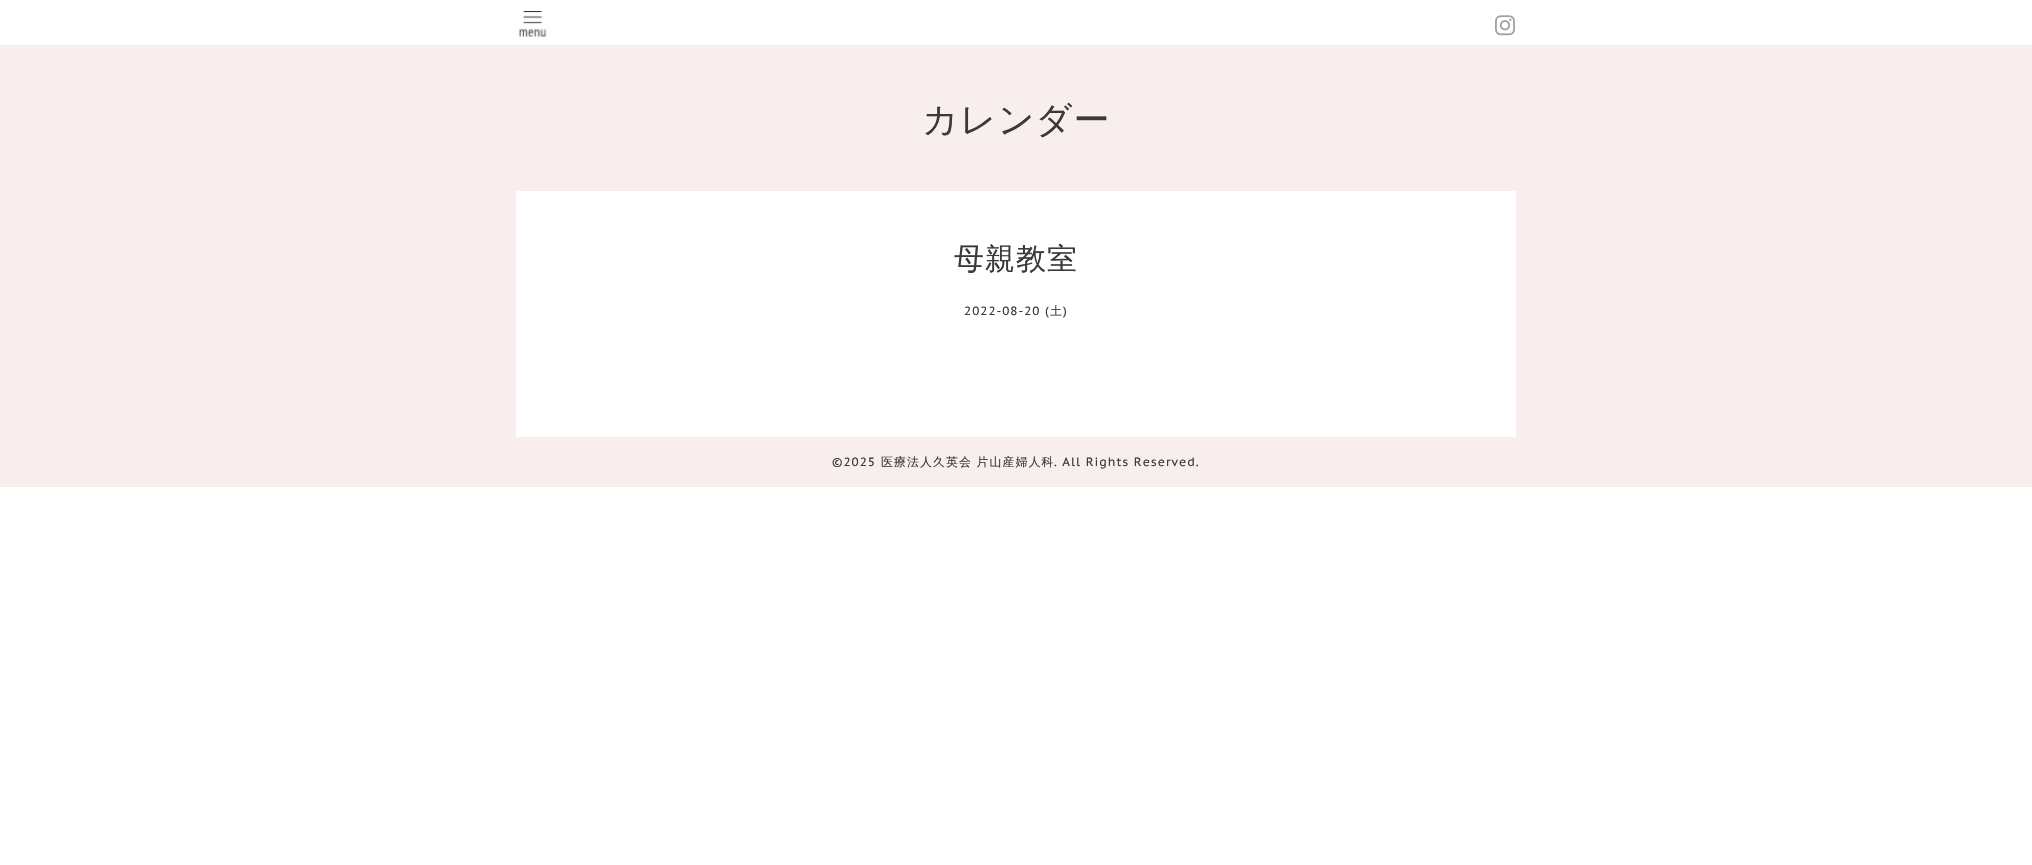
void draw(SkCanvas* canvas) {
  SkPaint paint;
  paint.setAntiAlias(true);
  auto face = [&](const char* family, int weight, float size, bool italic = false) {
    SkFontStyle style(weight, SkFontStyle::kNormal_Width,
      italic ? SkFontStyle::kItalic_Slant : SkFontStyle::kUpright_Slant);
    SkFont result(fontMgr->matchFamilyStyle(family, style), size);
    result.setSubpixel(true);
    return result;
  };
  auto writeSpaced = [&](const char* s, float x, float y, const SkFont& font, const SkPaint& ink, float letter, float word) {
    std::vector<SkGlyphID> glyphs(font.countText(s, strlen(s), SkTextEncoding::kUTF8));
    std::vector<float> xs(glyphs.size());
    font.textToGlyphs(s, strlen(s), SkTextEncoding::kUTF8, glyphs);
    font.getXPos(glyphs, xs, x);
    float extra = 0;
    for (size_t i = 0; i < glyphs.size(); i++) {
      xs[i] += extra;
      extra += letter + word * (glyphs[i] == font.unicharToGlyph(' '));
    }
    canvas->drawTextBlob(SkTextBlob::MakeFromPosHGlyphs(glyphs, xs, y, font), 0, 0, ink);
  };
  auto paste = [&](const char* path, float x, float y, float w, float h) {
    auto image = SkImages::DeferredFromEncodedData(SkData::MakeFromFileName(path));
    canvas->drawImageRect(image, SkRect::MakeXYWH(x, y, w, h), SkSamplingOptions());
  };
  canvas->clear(0xffffffff);
  paint.setColor(0xfff9eeee);
  canvas->drawRect(SkRect::MakeXYWH(0, 45, 2032, 442), paint);
  paste("img/1.png", 519, 11, 28, 26);
  paste("img/2.png", 1495, 15, 20, 21);
  paint.setColor(0xffffffff);
  canvas->drawRect(SkRect::MakeXYWH(516, 191, 1000, 246), paint);
  auto f0 = face("WenQuanYi Zen Hei", 500, 36);
  paint.setColor(0xff3a3a3a);
  writeSpaced("カレンダー", 922, 132, f0, paint, 1, 0);
  auto f1 = face("WenQuanYi Zen Hei", 500, 30);
  writeSpaced("母親教室", 954, 269, f1, paint, 1, 0);
  auto f2 = face("PT Sans Caption", 400, 12);
  writeSpaced("2022-08-20 (", 964, 315, f2, paint, 1, 0);
  auto f3 = face("WenQuanYi Zen Hei", 500, 12);
  writeSpaced("土", 1050, 315, f3, paint, 1, 0);
  writeSpaced(")", 1063, 315, f2, paint, 1, 0);
  writeSpaced("©2025", 832, 466, f2, paint, 1, 0);
  writeSpaced("医療法人久英会 片山産婦人科", 881, 466, f3, paint, 1, 0);
  writeSpaced(". All Rights Reserved.", 1054, 466, f2, paint, 1, 0);
}
